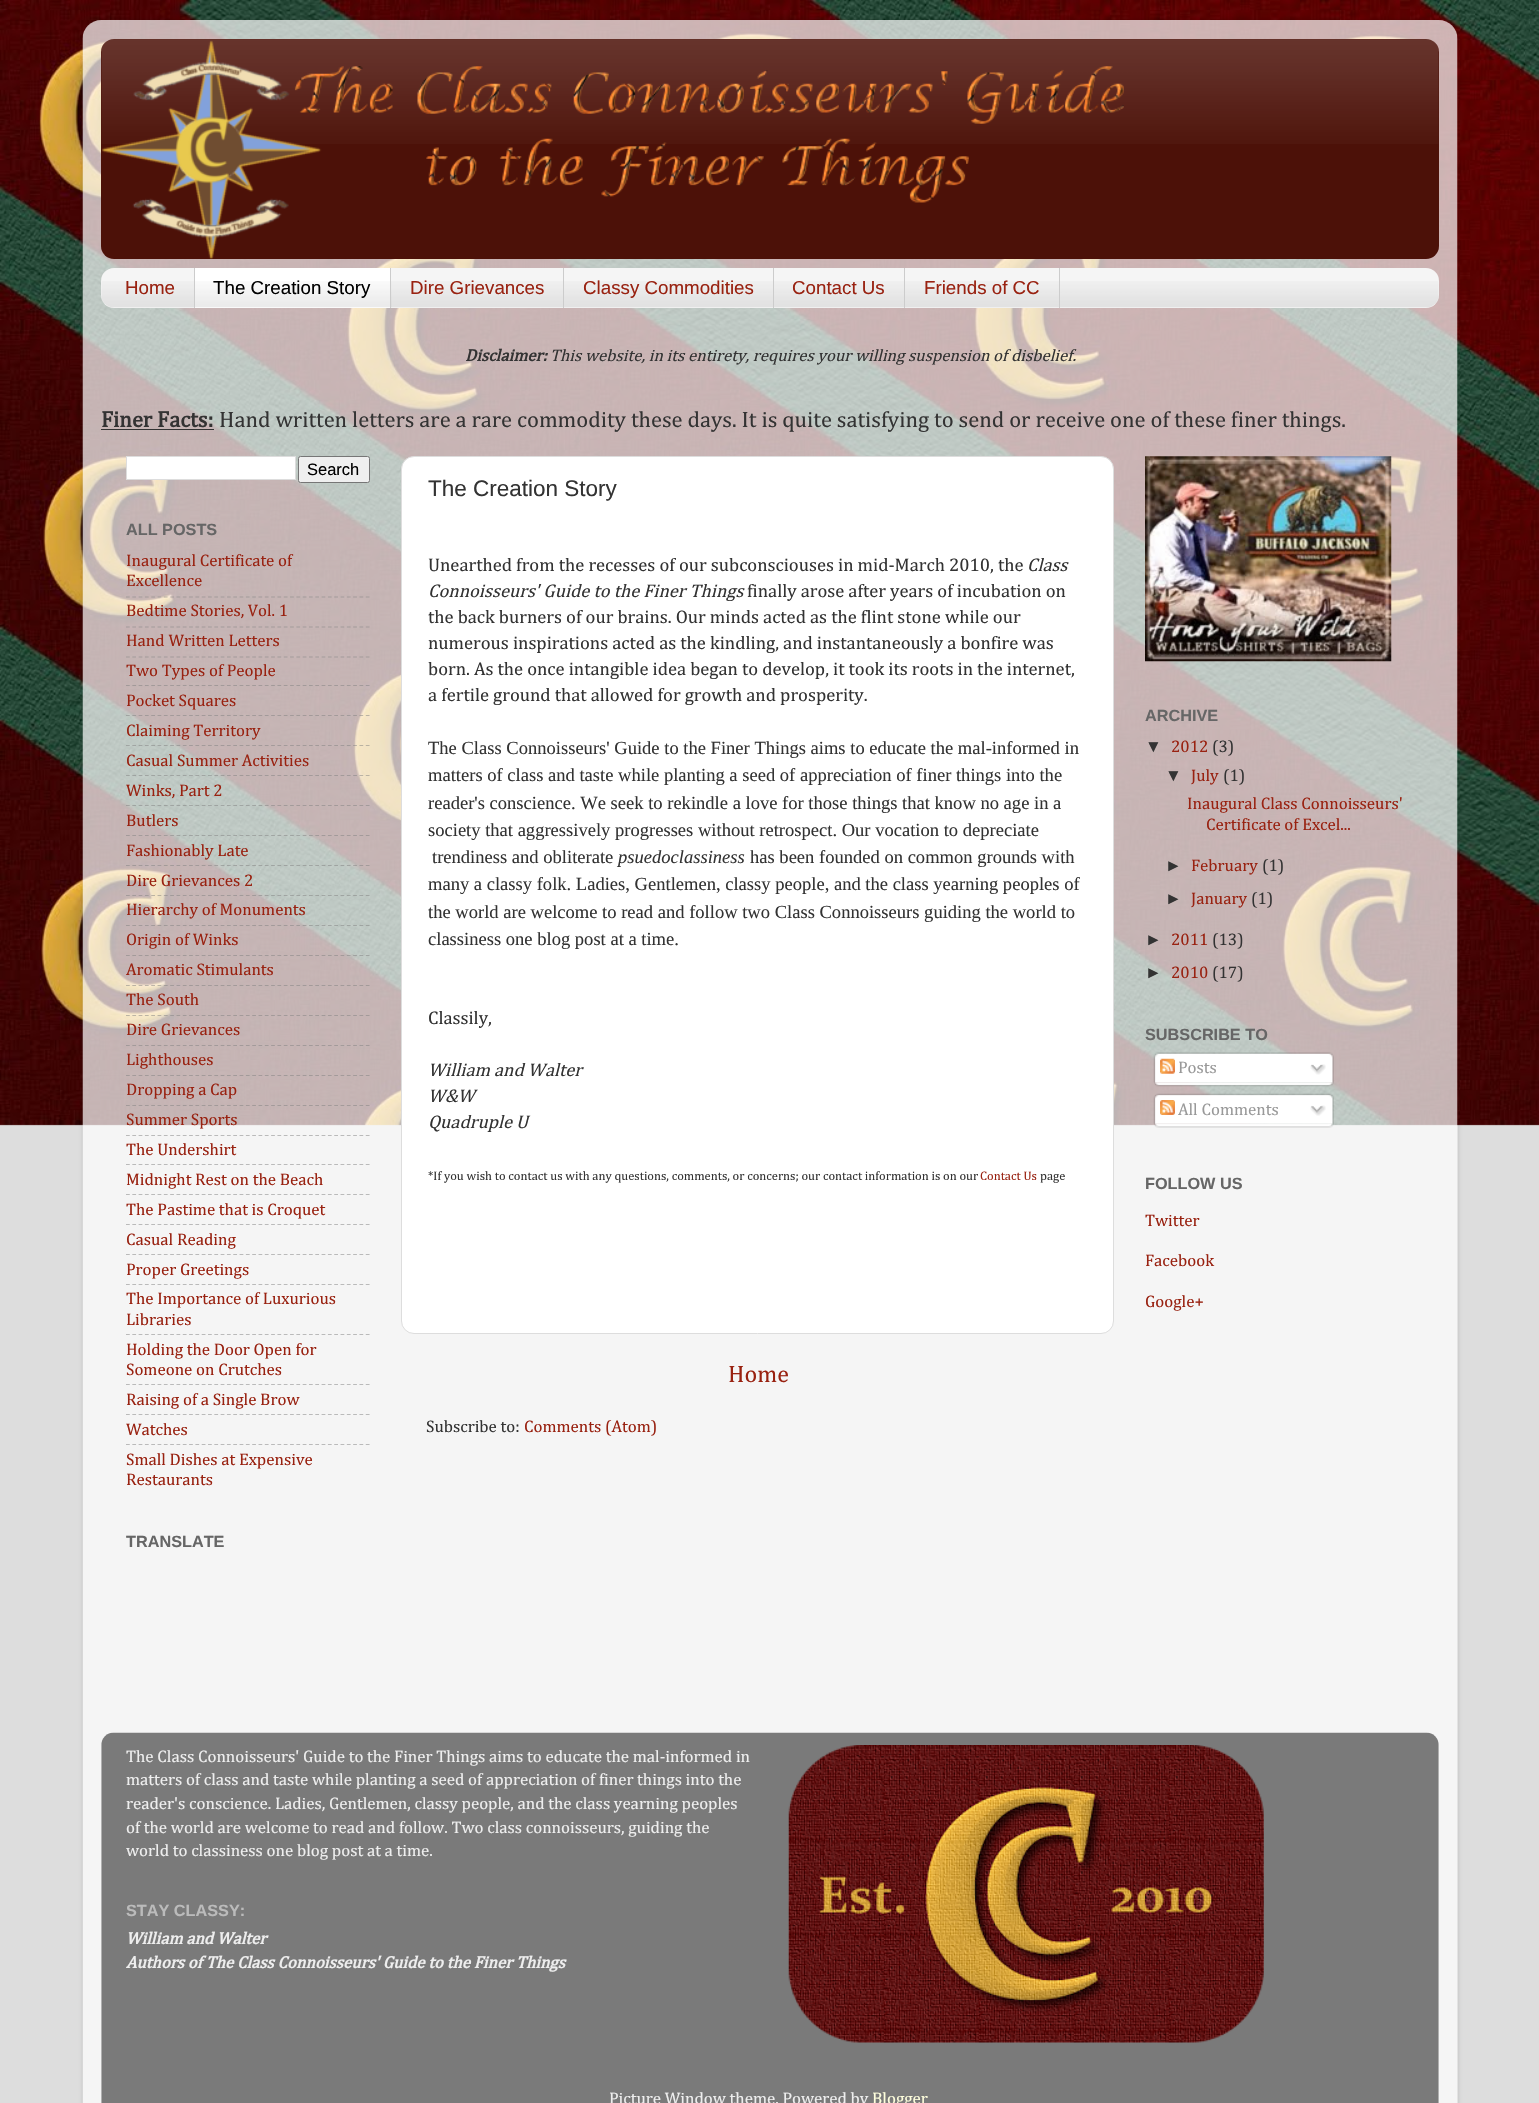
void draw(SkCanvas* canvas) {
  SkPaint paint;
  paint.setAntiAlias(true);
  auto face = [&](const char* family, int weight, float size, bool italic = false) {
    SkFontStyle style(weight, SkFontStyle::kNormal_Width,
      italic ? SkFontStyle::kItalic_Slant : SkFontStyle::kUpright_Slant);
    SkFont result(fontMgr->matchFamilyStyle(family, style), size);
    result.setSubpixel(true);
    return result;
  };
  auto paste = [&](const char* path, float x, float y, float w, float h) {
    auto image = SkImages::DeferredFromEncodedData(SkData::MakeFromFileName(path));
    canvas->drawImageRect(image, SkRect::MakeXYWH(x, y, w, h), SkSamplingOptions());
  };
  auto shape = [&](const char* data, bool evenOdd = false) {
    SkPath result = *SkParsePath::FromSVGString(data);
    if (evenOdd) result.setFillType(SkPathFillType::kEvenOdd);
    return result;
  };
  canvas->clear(0xffdddddd);
  paste("img/1.png", 0, 0, 1539, 1126);
  canvas->save();
  canvas->clipPath(shape("M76 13H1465V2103H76ZM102 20H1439C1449.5 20 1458 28.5 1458 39V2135C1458 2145.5 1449.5 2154 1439 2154H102C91.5 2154 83 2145.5 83 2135V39C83 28.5 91.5 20 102 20Z", true), true);
  paint.setColor(0x26000000);
  paint.setMaskFilter(SkMaskFilter::MakeBlur(kNormal_SkBlurStyle, 2));
  canvas->drawRoundRect(SkRect::MakeXYWH(83, 20, 1375, 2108), 19, 19, paint);
  paint.setMaskFilter(nullptr);
  canvas->restore();
  paste("img/2.png", 82, 20, 1376, 2083);
  paint.setColor(0xff4c1108);
  canvas->drawRoundRect(SkRect::MakeXYWH(101, 39, 1338, 220), 13, 13, paint);
  paste("img/3.png", 101, 39, 1338, 105);
  paste("img/4.png", 102, 40, 1022, 219);
  paint.setColor(0xfff5f5f5);
  canvas->drawRoundRect(SkRect::MakeXYWH(101, 268, 1338, 40), 13, 13, paint);
  paste("img/5.png", 101, 281, 1338, 27);
  paint.setColor(0xffcccccc);
  canvas->drawRect(SkRect::MakeXYWH(194, 268, 1, 40), paint);
  paint.setColor(0xffffffff);
  canvas->drawRect(SkRect::MakeXYWH(195, 268, 195, 40), paint);
  paste("img/6.png", 195, 281, 197, 27);
  {
    const struct { float x, y, w, h; SkColor color; } items[] = {
      {390, 268, 1, 40, 0xffcccccc},
      {563, 268, 1, 40, 0xffcccccc},
      {773, 268, 1, 40, 0xffcccccc},
      {904, 268, 1, 40, 0xffcccccc},
      {1059, 268, 1, 40, 0xffcccccc},
      {101, 429, 113, 1, 0xff333333},
    };
    for (auto [x, y, w, h, color] : items) {
      paint.setColor(color);
      canvas->drawRect(SkRect::MakeXYWH(x, y, w, h), paint);
    }
  }
  paint.setColor(0xffffffff);
  canvas->drawRect(SkRect::MakeXYWH(126.5f, 456.5f, 169, 23), paint);
  paint.setStroke(true);
  paint.setStrokeWidth(1);
  paint.setColor(0xffdddddd);
  canvas->drawRect(SkRect::MakeXYWH(126.5f, 456.5f, 169, 23), paint);
  paint.setStroke(false);
  paint.setColor(0xffefefef);
  canvas->drawRoundRect(SkRect::MakeXYWH(298.5f, 456.5f, 71, 26), 2, 2, paint);
  paint.setStroke(true);
  paint.setColor(0xff767676);
  canvas->drawRoundRect(SkRect::MakeXYWH(298.5f, 456.5f, 71, 26), 2, 2, paint);
  paint.setStrokeWidth(1.2f);
  paint.setColor(0x80808080);
  paint.setPathEffect(SkDashPathEffect::Make({{3.75f, 2.56f}}, 0));
  canvas->drawPath(shape("M126 597H370"), paint);
  paint.setPathEffect(nullptr);
  paint.setPathEffect(SkDashPathEffect::Make({{3.75f, 2.56f}}, 0));
  canvas->drawPath(shape("M126 627H370"), paint);
  paint.setPathEffect(nullptr);
  paint.setPathEffect(SkDashPathEffect::Make({{3.75f, 2.56f}}, 0));
  canvas->drawPath(shape("M126 657H370"), paint);
  paint.setPathEffect(nullptr);
  paint.setPathEffect(SkDashPathEffect::Make({{3.75f, 2.56f}}, 0));
  canvas->drawPath(shape("M126 685.5H370"), paint);
  paint.setPathEffect(nullptr);
  paint.setPathEffect(SkDashPathEffect::Make({{3.75f, 2.56f}}, 0));
  canvas->drawPath(shape("M126 715.5H370"), paint);
  paint.setPathEffect(nullptr);
  paint.setPathEffect(SkDashPathEffect::Make({{3.75f, 2.56f}}, 0));
  canvas->drawPath(shape("M126 745.5H370"), paint);
  paint.setPathEffect(nullptr);
  paint.setPathEffect(SkDashPathEffect::Make({{3.75f, 2.56f}}, 0));
  canvas->drawPath(shape("M126 775.5H370"), paint);
  paint.setPathEffect(nullptr);
  paint.setPathEffect(SkDashPathEffect::Make({{3.75f, 2.56f}}, 0));
  canvas->drawPath(shape("M126 805.5H370"), paint);
  paint.setPathEffect(nullptr);
  paint.setPathEffect(SkDashPathEffect::Make({{3.75f, 2.56f}}, 0));
  canvas->drawPath(shape("M126 835.5H370"), paint);
  paint.setPathEffect(nullptr);
  paint.setPathEffect(SkDashPathEffect::Make({{3.75f, 2.56f}}, 0));
  canvas->drawPath(shape("M126 865.5H370"), paint);
  paint.setPathEffect(nullptr);
  paint.setPathEffect(SkDashPathEffect::Make({{3.75f, 2.56f}}, 0));
  canvas->drawPath(shape("M126 895.5H370"), paint);
  paint.setPathEffect(nullptr);
  paint.setPathEffect(SkDashPathEffect::Make({{3.75f, 2.56f}}, 0));
  canvas->drawPath(shape("M126 925.5H370"), paint);
  paint.setPathEffect(nullptr);
  paint.setPathEffect(SkDashPathEffect::Make({{3.75f, 2.56f}}, 0));
  canvas->drawPath(shape("M126 955.5H370"), paint);
  paint.setPathEffect(nullptr);
  paint.setPathEffect(SkDashPathEffect::Make({{3.75f, 2.56f}}, 0));
  canvas->drawPath(shape("M126 985.5H370"), paint);
  paint.setPathEffect(nullptr);
  paint.setPathEffect(SkDashPathEffect::Make({{3.75f, 2.56f}}, 0));
  canvas->drawPath(shape("M126 1015.5H370"), paint);
  paint.setPathEffect(nullptr);
  paint.setPathEffect(SkDashPathEffect::Make({{3.75f, 2.56f}}, 0));
  canvas->drawPath(shape("M126 1045.5H370"), paint);
  paint.setPathEffect(nullptr);
  paint.setPathEffect(SkDashPathEffect::Make({{3.75f, 2.56f}}, 0));
  canvas->drawPath(shape("M126 1075.5H370"), paint);
  paint.setPathEffect(nullptr);
  paint.setPathEffect(SkDashPathEffect::Make({{3.75f, 2.56f}}, 0));
  canvas->drawPath(shape("M126 1105.5H370"), paint);
  paint.setPathEffect(nullptr);
  paint.setColor(0xffbababa);
  paint.setPathEffect(SkDashPathEffect::Make({{3.75f, 2.56f}}, 0));
  canvas->drawPath(shape("M126 1135.5H370"), paint);
  paint.setPathEffect(nullptr);
  paint.setPathEffect(SkDashPathEffect::Make({{3.75f, 2.56f}}, 0));
  canvas->drawPath(shape("M126 1164.5H370"), paint);
  paint.setPathEffect(nullptr);
  paint.setPathEffect(SkDashPathEffect::Make({{3.75f, 2.56f}}, 0));
  canvas->drawPath(shape("M126 1194.5H370"), paint);
  paint.setPathEffect(nullptr);
  paint.setPathEffect(SkDashPathEffect::Make({{3.75f, 2.56f}}, 0));
  canvas->drawPath(shape("M126 1224.5H370"), paint);
  paint.setPathEffect(nullptr);
  paint.setPathEffect(SkDashPathEffect::Make({{3.75f, 2.56f}}, 0));
  canvas->drawPath(shape("M126 1254.5H370"), paint);
  paint.setPathEffect(nullptr);
  paint.setPathEffect(SkDashPathEffect::Make({{3.75f, 2.56f}}, 0));
  canvas->drawPath(shape("M126 1284.5H370"), paint);
  paint.setPathEffect(nullptr);
  paint.setPathEffect(SkDashPathEffect::Make({{3.75f, 2.56f}}, 0));
  canvas->drawPath(shape("M126 1334.5H370"), paint);
  paint.setPathEffect(nullptr);
  paint.setPathEffect(SkDashPathEffect::Make({{3.75f, 2.56f}}, 0));
  canvas->drawPath(shape("M126 1384.5H370"), paint);
  paint.setPathEffect(nullptr);
  paint.setPathEffect(SkDashPathEffect::Make({{3.75f, 2.56f}}, 0));
  canvas->drawPath(shape("M126 1414.5H370"), paint);
  paint.setPathEffect(nullptr);
  paint.setPathEffect(SkDashPathEffect::Make({{3.75f, 2.56f}}, 0));
  canvas->drawPath(shape("M126 1444.5H370"), paint);
  paint.setPathEffect(nullptr);
  paint.setStroke(false);
  paint.setColor(0xffffffff);
  canvas->drawRoundRect(SkRect::MakeXYWH(401.5f, 456.5f, 712, 877), 12.5f, 12.5f, paint);
  paint.setStroke(true);
  paint.setStrokeWidth(1);
  paint.setColor(0xffdddddd);
  canvas->drawRoundRect(SkRect::MakeXYWH(401.5f, 456.5f, 712, 877), 12.5f, 12.5f, paint);
  paste("img/7.png", 1145, 456, 247, 206);
  paste("img/8.png", 1153, 1052, 181, 31);
  paste("img/9.png", 1160, 1058, 15, 16);
  paste("img/10.png", 1310, 1064, 16, 11);
  paste("img/11.png", 1154, 1082, 180, 5);
  paste("img/12.png", 1153, 1093, 181, 31);
  paste("img/13.png", 1160, 1100, 15, 15);
  paste("img/14.png", 1310, 1105, 16, 11);
  paste("img/15.png", 1154, 1123, 180, 5);
  paste("img/16.png", 101, 1732, 1338, 371);
  paste("img/17.png", 788, 1745, 476, 298);
  auto f0 = face("Liberation Sans", 400, 18.75f);
  paint.setStroke(false);
  paint.setColor(0xff992211);
  canvas->drawString("Home", 125, 294, f0, paint);
  paint.setColor(0xff000000);
  canvas->drawString("The Creation Story", 213, 294, f0, paint);
  paint.setColor(0xff992211);
  {
    const struct { const char* s; float x, y; } items[] = {
      {"Dire Grievances", 410, 294},
      {"Classy Commodities", 583, 294},
      {"Contact Us", 792, 294},
      {"Friends of CC", 924, 294},
    };
    for (auto [s, x, y] : items) {
      canvas->drawString(s, x, y, f0, paint);
    }
  }
  auto f1 = face("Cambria", 700, 16.9f, true);
  paint.setColor(0xff333333);
  canvas->drawString("Disclaimer:", 465, 361, f1, paint);
  auto f2 = face("Cambria", 400, 16.9f, true);
  canvas->drawString("This website, in its entirety, requires your willing suspension of disbelief.", 550, 361, f2, paint);
  auto f3 = face("Cambria", 700, 22.5f);
  canvas->drawString("Finer Facts:", 101, 427, f3, paint);
  auto f4 = face("Cambria", 400, 22.5f);
  canvas->drawString("Hand written letters are a rare commodity these days. It is quite satisfying to send or receive one of these finer things.", 219, 427, f4, paint);
  auto f5 = face("Liberation Sans", 400, 16.5f);
  paint.setColor(0xff000000);
  canvas->drawString("Search", 307, 475, f5, paint);
  auto f6 = face("Liberation Sans", 700, 16.25f);
  paint.setColor(0xff666666);
  canvas->drawString("ALL POSTS", 126, 535, f6, paint);
  auto f7 = face("Cambria", 400, 16.9f);
  paint.setColor(0xff992211);
  {
    const struct { const char* s; float x, y; } items[] = {
      {"Inaugural Certificate of", 126, 566},
      {"Excellence", 126, 586},
      {"Bedtime Stories, Vol. 1", 126, 616},
      {"Hand Written Letters", 126, 646},
      {"Two Types of People", 126, 676},
      {"Pocket Squares", 126, 706},
      {"Claiming Territory", 126, 736},
      {"Casual Summer Activities", 126, 766},
      {"Winks, Part 2", 126, 796},
      {"Butlers", 126, 826},
      {"Fashionably Late", 126, 856},
      {"Dire Grievances 2", 126, 886},
      {"Hierarchy of Monuments", 126, 915},
      {"Origin of Winks", 126, 945},
      {"Aromatic Stimulants", 126, 975},
      {"The South", 126, 1005},
      {"Dire Grievances", 126, 1035},
      {"Lighthouses", 126, 1065},
      {"Dropping a Cap", 126, 1095},
      {"Summer Sports", 126, 1125},
      {"The Undershirt", 126, 1155},
      {"Midnight Rest on the Beach", 126, 1185},
      {"The Pastime that is Croquet", 126, 1215},
      {"Casual Reading", 126, 1245},
      {"Proper Greetings", 126, 1275},
      {"The Importance of Luxurious", 126, 1304},
      {"Libraries", 126, 1325},
      {"Holding the Door Open for", 126, 1355},
      {"Someone on Crutches", 126, 1375},
      {"Raising of a Single Brow", 126, 1405},
      {"Watches", 126, 1435},
      {"Small Dishes at Expensive", 126, 1465},
      {"Restaurants", 126, 1485},
    };
    for (auto [s, x, y] : items) {
      canvas->drawString(s, x, y, f7, paint);
    }
  }
  paint.setColor(0xff666666);
  canvas->drawString("TRANSLATE", 126, 1547, f6, paint);
  auto f8 = face("Liberation Sans", 400, 22.5f);
  paint.setColor(0xff333333);
  canvas->drawString("The Creation Story", 428, 496, f8, paint);
  auto f9 = face("Cambria", 400, 18.55f);
  canvas->drawString("Unearthed from the recesses of our subconsciouses in mid-March 2010, the", 428, 571, f9, paint);
  auto f10 = face("Cambria", 400, 18.55f, true);
  canvas->drawString("Class", 1027, 571, f10, paint);
  canvas->drawString("Connoisseurs' Guide to the Finer Things", 428, 597, f10, paint);
  {
    const struct { const char* s; float x, y; } items[] = {
      {"finally arose after years of incubation on", 747, 597},
      {"the back burners of our brains. Our minds acted as the flint stone while our", 428, 623},
      {"numerous inspirations acted as the kindling, and instantaneously a bonfire was", 428, 649},
      {"born. As the once intangible idea began to develop, it took its roots in the internet,", 428, 675},
      {"a fertile ground that allowed for growth and prosperity.", 428, 701},
    };
    for (auto [s, x, y] : items) {
      canvas->drawString(s, x, y, f9, paint);
    }
  }
  auto f11 = face("Liberation Serif", 400, 18.55f);
  {
    const struct { const char* s; float x, y; } items[] = {
      {"The Class Connoisseurs' Guide to the Finer Things aims to educate the mal-informed in", 428, 754},
      {"matters of class and taste while planting a seed of appreciation of finer things into the", 428, 781},
      {"reader's conscience. We seek to rekindle a love for those things that know no age in a", 428, 809},
      {"society that aggressively progresses without retrospect. Our vocation to depreciate", 428, 836},
      {"trendiness and obliterate", 432, 863},
    };
    for (auto [s, x, y] : items) {
      canvas->drawString(s, x, y, f11, paint);
    }
  }
  auto f12 = face("Liberation Serif", 400, 18.55f, true);
  canvas->drawString("psuedoclassiness", 618, 863, f12, paint);
  {
    const struct { const char* s; float x, y; } items[] = {
      {"has been founded on common grounds with", 750, 863},
      {"many a classy folk. Ladies, Gentlemen, classy people, and the class yearning peoples of", 428, 890},
      {"the world are welcome to read and follow two Class Connoisseurs guiding the world to", 428, 918},
      {"classiness one blog post at a time.", 428, 945},
    };
    for (auto [s, x, y] : items) {
      canvas->drawString(s, x, y, f11, paint);
    }
  }
  canvas->drawString("Classily,", 428, 1024, f9, paint);
  {
    const struct { const char* s; float x, y; } items[] = {
      {"William and Walter", 428, 1076},
      {"W&W", 428, 1102},
      {"Quadruple U", 428, 1128},
    };
    for (auto [s, x, y] : items) {
      canvas->drawString(s, x, y, f10, paint);
    }
  }
  auto f13 = face("Cambria", 400, 12.5f);
  canvas->drawString("*If you wish to contact us with any questions, comments, or concerns; our contact information is on our", 428, 1180, f13, paint);
  paint.setColor(0xff992211);
  canvas->drawString("Contact Us", 980, 1180, f13, paint);
  paint.setColor(0xff333333);
  canvas->drawString("page", 1040, 1180, f13, paint);
  auto f14 = face("Cambria", 400, 24);
  paint.setColor(0xff992211);
  canvas->drawString("Home", 728, 1382, f14, paint);
  paint.setColor(0xff333333);
  canvas->drawString("Subscribe to:", 426, 1432, f7, paint);
  paint.setColor(0xff992211);
  canvas->drawString("Comments (Atom)", 524, 1432, f7, paint);
  paint.setColor(0xff666666);
  canvas->drawString("ARCHIVE", 1145, 721, f6, paint);
  auto f15 = face("Liberation Sans", 400, 16.9f);
  paint.setColor(0xff333333);
  canvas->drawString("▼", 1145, 752, f15, paint);
  paint.setColor(0xff992211);
  canvas->drawString("2012", 1171, 752, f7, paint);
  paint.setColor(0xff333333);
  canvas->drawString("(3)", 1212, 752, f7, paint);
  canvas->drawString("▼", 1165, 781, f15, paint);
  paint.setColor(0xff992211);
  canvas->drawString("July", 1191, 781, f7, paint);
  paint.setColor(0xff333333);
  canvas->drawString("(1)", 1223, 781, f7, paint);
  paint.setColor(0xff992211);
  canvas->drawString("Inaugural Class Connoisseurs'", 1187, 809, f7, paint);
  canvas->drawString("Certificate of Excel...", 1206, 830, f7, paint);
  paint.setColor(0xff333333);
  canvas->drawString("►", 1165, 871, f15, paint);
  paint.setColor(0xff992211);
  canvas->drawString("February", 1191, 871, f7, paint);
  paint.setColor(0xff333333);
  canvas->drawString("(1)", 1262, 871, f7, paint);
  canvas->drawString("►", 1165, 904, f15, paint);
  paint.setColor(0xff992211);
  canvas->drawString("January", 1191, 904, f7, paint);
  paint.setColor(0xff333333);
  canvas->drawString("(1)", 1251, 904, f7, paint);
  canvas->drawString("►", 1145, 945, f15, paint);
  paint.setColor(0xff992211);
  canvas->drawString("2011", 1171, 945, f7, paint);
  paint.setColor(0xff333333);
  canvas->drawString("(13)", 1212, 945, f7, paint);
  canvas->drawString("►", 1145, 978, f15, paint);
  paint.setColor(0xff992211);
  canvas->drawString("2010", 1171, 978, f7, paint);
  paint.setColor(0xff333333);
  canvas->drawString("(17)", 1212, 978, f7, paint);
  paint.setColor(0xff666666);
  canvas->drawString("SUBSCRIBE TO", 1145, 1040, f6, paint);
  paint.setColor(0xff999999);
  canvas->drawString("Posts", 1178, 1073, f7, paint);
  canvas->drawString("All Comments", 1178, 1115, f7, paint);
  paint.setColor(0xff666666);
  canvas->drawString("FOLLOW US", 1145, 1189, f6, paint);
  paint.setColor(0xff992211);
  {
    const struct { const char* s; float x, y; } items[] = {
      {"Twitter", 1145, 1226},
      {"Facebook", 1145, 1266},
      {"Google+", 1145, 1307},
    };
    for (auto [s, x, y] : items) {
      canvas->drawString(s, x, y, f7, paint);
    }
  }
  paint.setColor(0xffeeeeee);
  {
    const struct { const char* s; float x, y; } items[] = {
      {"The Class Connoisseurs' Guide to the Finer Things aims to educate the mal-informed in", 126, 1762},
      {"matters of class and taste while planting a seed of appreciation of finer things into the", 126, 1785},
      {"reader's conscience. Ladies, Gentlemen, classy people, and the class yearning peoples", 126, 1809},
      {"of the world are welcome to read and follow. Two class connoisseurs, guiding the", 126, 1833},
      {"world to classiness one blog post at a time.", 126, 1856},
    };
    for (auto [s, x, y] : items) {
      canvas->drawString(s, x, y, f7, paint);
    }
  }
  paint.setColor(0xffbbbbbb);
  canvas->drawString("STAY CLASSY:", 126, 1916, f6, paint);
  paint.setColor(0xffeeeeee);
  canvas->drawString("William and Walter", 126, 1944, f1, paint);
  canvas->drawString("Authors of The Class Connoisseurs' Guide to the Finer Things", 126, 1968, f1, paint);
  canvas->drawString("Picture Window theme. Powered by", 609, 2104, f7, paint);
  paint.setColor(0xffffffdd);
  canvas->drawString("Blogger", 872, 2104, f7, paint);
}
